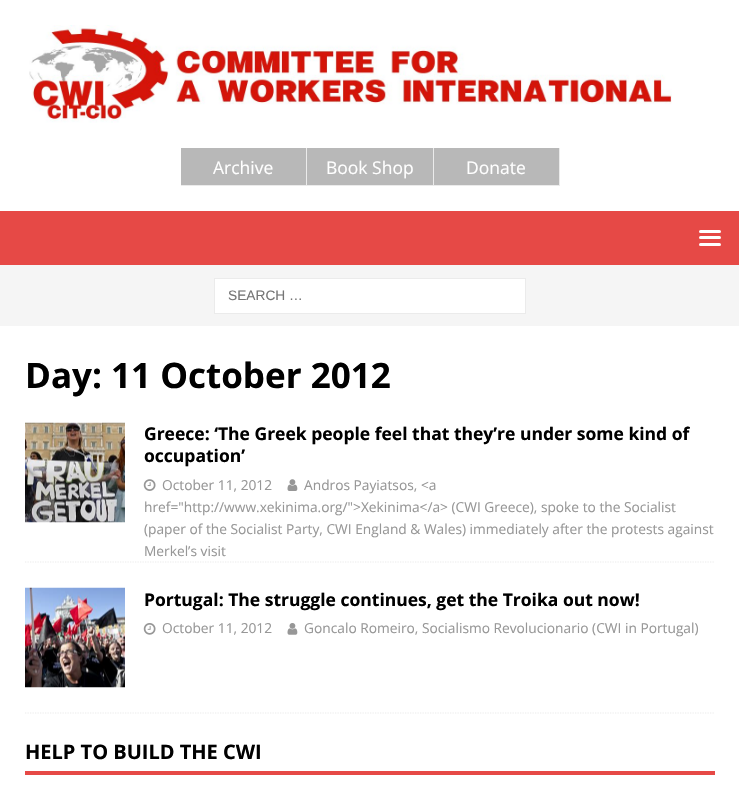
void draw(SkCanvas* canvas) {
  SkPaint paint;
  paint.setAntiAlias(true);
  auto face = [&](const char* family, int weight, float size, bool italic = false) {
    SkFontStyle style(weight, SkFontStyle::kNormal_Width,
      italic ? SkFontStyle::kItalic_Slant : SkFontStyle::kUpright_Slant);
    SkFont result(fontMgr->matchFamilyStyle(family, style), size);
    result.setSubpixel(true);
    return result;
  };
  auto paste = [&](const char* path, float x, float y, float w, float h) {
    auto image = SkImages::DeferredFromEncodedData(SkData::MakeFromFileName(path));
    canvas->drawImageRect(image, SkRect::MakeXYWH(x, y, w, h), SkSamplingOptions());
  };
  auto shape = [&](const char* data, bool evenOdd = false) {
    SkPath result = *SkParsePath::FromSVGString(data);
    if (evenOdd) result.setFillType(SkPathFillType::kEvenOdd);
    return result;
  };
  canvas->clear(0xffffffff);
  paste("img/1.png", 29, 25, 643, 98);
  {
    const struct { float x, y, w, h; SkColor color; } items[] = {
      {181, 148, 252, 37, 0xffb8b8b8},
      {306, 148, 1, 38, 0xffebebeb},
      {181, 185, 127, 1, 0xffebebeb},
      {433, 148, 1, 38, 0xffebebeb},
      {308, 185, 126, 1, 0xffebebeb},
      {434, 148, 125, 37, 0xffb8b8b8},
      {559, 148, 1, 38, 0xffebebeb},
      {434, 185, 126, 1, 0xffebebeb},
      {0, 211, 739, 54, 0xffe64946},
    };
    for (auto [x, y, w, h, color] : items) {
      paint.setColor(color);
      canvas->drawRect(SkRect::MakeXYWH(x, y, w, h), paint);
    }
  }
  paint.setColor(0xffffffff);
  canvas->drawRoundRect(SkRect::MakeXYWH(699, 230, 22, 3), 1.5f, 1.5f, paint);
  canvas->drawRoundRect(SkRect::MakeXYWH(699, 236, 22, 3), 1.5f, 1.5f, paint);
  canvas->drawRoundRect(SkRect::MakeXYWH(699, 243, 22, 3), 1.5f, 1.5f, paint);
  paint.setColor(0xfff5f5f5);
  canvas->drawRect(SkRect::MakeXYWH(0, 265, 739, 61), paint);
  paint.setColor(0xffffffff);
  canvas->drawRect(SkRect::MakeXYWH(214.5f, 278.5f, 311, 35), paint);
  paint.setStroke(true);
  paint.setStrokeWidth(1);
  paint.setColor(0xffebebeb);
  canvas->drawRect(SkRect::MakeXYWH(214.5f, 278.5f, 311, 35), paint);
  paint.setStrokeWidth(1.2f);
  paint.setPathEffect(SkDashPathEffect::Make({{1.25f, 1.25f}}, 0));
  canvas->drawPath(shape("M25 562H715"), paint);
  paint.setPathEffect(nullptr);
  paste("img/2.png", 25, 422, 100, 101);
  paste("img/3.png", 287, 479, 11, 12);
  paste("img/4.png", 143, 479, 13, 12);
  paint.setPathEffect(SkDashPathEffect::Make({{1.25f, 1.25f}}, 0));
  canvas->drawPath(shape("M25 713H715"), paint);
  paint.setPathEffect(nullptr);
  paste("img/5.png", 25, 587, 100, 101);
  paste("img/6.png", 143, 623, 13, 12);
  paste("img/7.png", 287, 623, 11, 12);
  paint.setStroke(false);
  paint.setColor(0xffe64946);
  canvas->drawRect(SkRect::MakeXYWH(25, 771, 690, 4), paint);
  auto f0 = face("Open Sans", 400, 17.5f);
  paint.setColor(0xffffffff);
  {
    const struct { const char* s; float x, y; } items[] = {
      {"Archive", 213, 174},
      {"Book Shop", 326, 174},
      {"Donate", 466, 174},
    };
    for (auto [s, x, y] : items) {
      canvas->drawString(s, x, y, f0, paint);
    }
  }
  auto f1 = face("Liberation Sans", 400, 13.75f);
  paint.setColor(0xff757575);
  canvas->drawString("SEARCH …", 228, 300, f1, paint);
  auto f2 = face("Open Sans", 700, 35);
  paint.setColor(0xff000000);
  canvas->drawString("Day: 11 October 2012", 25, 388, f2, paint);
  auto f3 = face("Open Sans", 700, 17.5f);
  canvas->drawString("Greece: ‘The Greek people feel that they’re under some kind of", 144, 440, f3, paint);
  canvas->drawString("occupation’", 144, 462, f3, paint);
  auto f4 = face("Open Sans", 400, 13.75f);
  paint.setColor(0xff979797);
  {
    const struct { const char* s; float x, y; } items[] = {
      {"Andros Payiatsos, <a", 304, 490},
      {"href=\"http://www.xekinima.org/\">Xekinima</a> (CWI Greece), spoke to the Socialist", 144, 512},
      {"(paper of the Socialist Party, CWI England & Wales) immediately after the protests against", 144, 534},
      {"Merkel’s visit", 144, 556},
      {"October 11, 2012", 162, 490},
    };
    for (auto [s, x, y] : items) {
      canvas->drawString(s, x, y, f4, paint);
    }
  }
  paint.setColor(0xff000000);
  canvas->drawString("Portugal: The struggle continues, get the Troika out now!", 144, 606, f3, paint);
  paint.setColor(0xff979797);
  canvas->drawString("October 11, 2012", 162, 633, f4, paint);
  canvas->drawString("Goncalo Romeiro, Socialismo Revolucionario (CWI in Portugal)", 304, 633, f4, paint);
  auto f5 = face("Open Sans", 700, 20);
  paint.setColor(0xff000000);
  canvas->drawString("HELP TO BUILD THE CWI", 25, 759, f5, paint);
}
